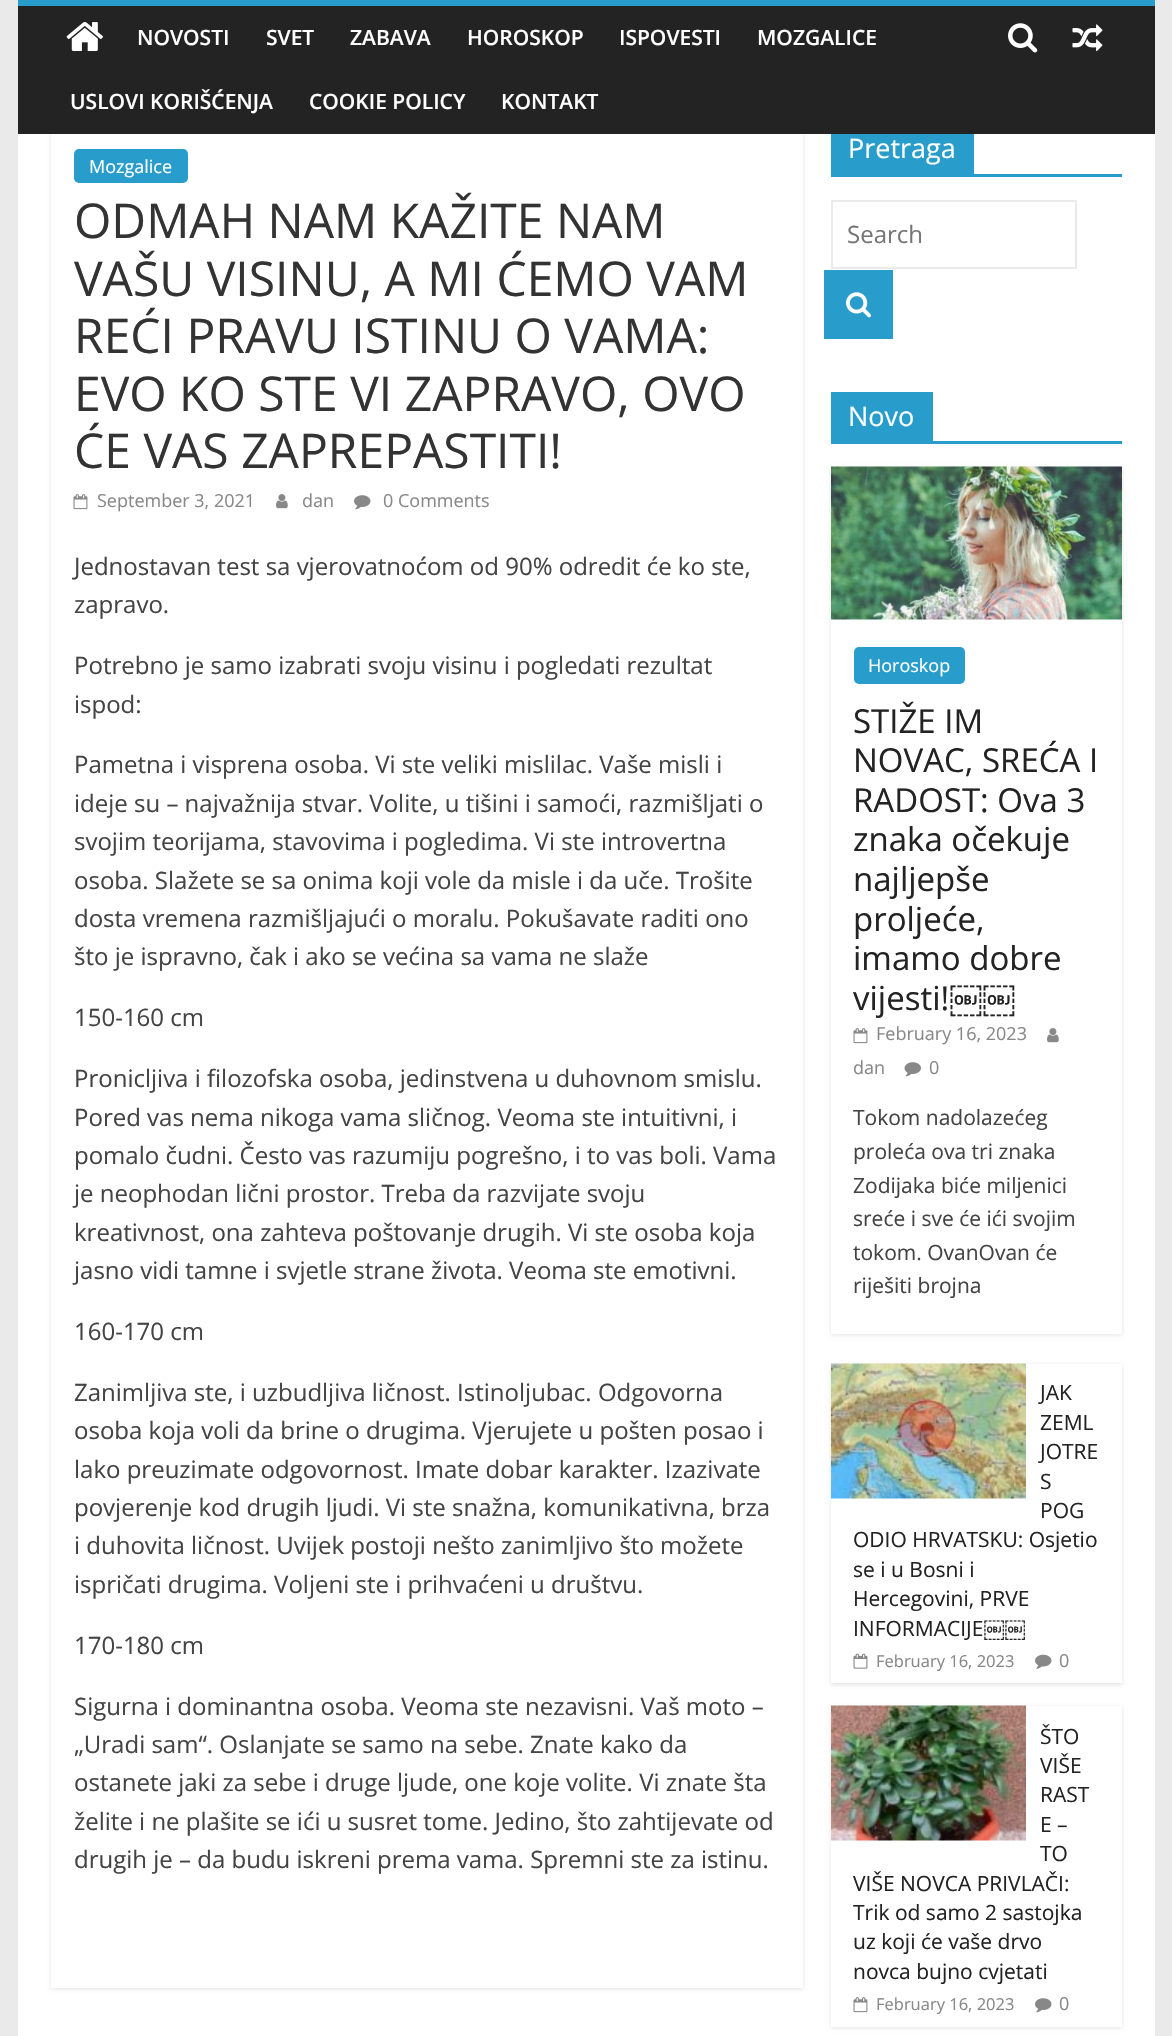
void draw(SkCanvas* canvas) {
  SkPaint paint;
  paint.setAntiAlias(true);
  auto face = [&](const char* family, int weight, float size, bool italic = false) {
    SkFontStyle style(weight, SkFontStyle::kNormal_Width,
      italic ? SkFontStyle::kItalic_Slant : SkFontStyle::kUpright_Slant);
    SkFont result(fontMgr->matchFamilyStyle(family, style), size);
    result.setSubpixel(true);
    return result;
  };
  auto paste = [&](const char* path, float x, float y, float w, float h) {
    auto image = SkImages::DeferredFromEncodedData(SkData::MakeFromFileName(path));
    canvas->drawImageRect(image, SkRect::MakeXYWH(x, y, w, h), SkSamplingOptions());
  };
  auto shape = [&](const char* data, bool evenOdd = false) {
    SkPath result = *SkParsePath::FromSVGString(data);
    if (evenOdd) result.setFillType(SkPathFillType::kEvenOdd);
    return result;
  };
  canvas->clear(0xffeaeaea);
  paint.setColor(0xffffffff);
  canvas->drawRect(SkRect::MakeXYWH(18, 134, 1137, 1902), paint);
  canvas->save();
  canvas->clipPath(shape("M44 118H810V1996H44ZM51 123H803V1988H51Z", true), true);
  paint.setColor(0x1a000000);
  paint.setMaskFilter(SkMaskFilter::MakeBlur(kNormal_SkBlurStyle, 2));
  canvas->drawRect(SkRect::MakeXYWH(51, 125, 752, 1864), paint);
  paint.setMaskFilter(nullptr);
  canvas->restore();
  paint.setColor(0xff232323);
  canvas->drawRect(SkRect::MakeXYWH(18, 6, 1137, 128), paint);
  paint.setColor(0xff289dcc);
  canvas->drawRect(SkRect::MakeXYWH(18, 0, 1137, 6), paint);
  paste("img/1.png", 66, 22, 37, 29);
  paste("img/2.png", 1008, 23, 30, 30);
  paste("img/3.png", 1072, 24, 31, 28);
  canvas->drawRoundRect(SkRect::MakeXYWH(74, 149, 114, 34), 5, 5, paint);
  paste("img/4.png", 73, 494, 15, 16);
  paste("img/5.png", 276, 494, 12, 15);
  paste("img/6.png", 354, 495, 17, 15);
  canvas->drawRect(SkRect::MakeXYWH(831, 174, 291, 3), paint);
  canvas->drawRect(SkRect::MakeXYWH(831, 134, 143, 40), paint);
  paint.setStroke(true);
  paint.setStrokeWidth(2);
  paint.setColor(0xffeaeaea);
  canvas->drawRect(SkRect::MakeXYWH(832, 201, 244, 67), paint);
  paint.setStroke(false);
  paint.setColor(0xff289dcc);
  canvas->drawRect(SkRect::MakeXYWH(824, 270, 69, 69), paint);
  paste("img/7.png", 846, 292, 26, 26);
  canvas->drawRect(SkRect::MakeXYWH(831, 441, 291, 3), paint);
  canvas->drawRect(SkRect::MakeXYWH(831, 392, 102, 49), paint);
  paint.setColor(0x1a000000);
  paint.setMaskFilter(SkMaskFilter::MakeBlur(kNormal_SkBlurStyle, 2));
  canvas->drawRect(SkRect::MakeXYWH(831, 468, 291, 867), paint);
  paint.setMaskFilter(nullptr);
  paint.setColor(0xffffffff);
  canvas->drawRect(SkRect::MakeXYWH(831, 619, 291, 715), paint);
  paste("img/8.png", 831, 466, 291, 154);
  paint.setColor(0xff289dcc);
  canvas->drawRoundRect(SkRect::MakeXYWH(854, 647, 111, 37), 5, 5, paint);
  paste("img/4.png", 853, 1028, 15, 16);
  paste("img/5.png", 1047, 1028, 12, 15);
  paste("img/9.png", 904, 1062, 17, 15);
  canvas->save();
  canvas->clipPath(shape("M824 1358H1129V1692H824ZM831 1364H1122V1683H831Z", true), true);
  paint.setColor(0x1a000000);
  paint.setMaskFilter(SkMaskFilter::MakeBlur(kNormal_SkBlurStyle, 2));
  canvas->drawRect(SkRect::MakeXYWH(831, 1365, 291, 320), paint);
  paint.setMaskFilter(nullptr);
  canvas->restore();
  paste("img/10.png", 831, 1363, 195, 136);
  paste("img/11.png", 853, 1653, 15, 16);
  paste("img/12.png", 1035, 1654, 17, 15);
  paint.setMaskFilter(SkMaskFilter::MakeBlur(kNormal_SkBlurStyle, 2));
  canvas->drawRect(SkRect::MakeXYWH(831, 1707, 291, 321), paint);
  paint.setMaskFilter(nullptr);
  paint.setColor(0xffffffff);
  canvas->drawRect(SkRect::MakeXYWH(831, 1706, 291, 321), paint);
  paste("img/13.png", 831, 1705, 195, 136);
  paste("img/4.png", 853, 1997, 15, 16);
  paste("img/6.png", 1035, 1998, 17, 15);
  auto f0 = face("Open Sans", 600, 21);
  {
    const struct { const char* s; float x, y; } items[] = {
      {"NOVOSTI", 137, 45},
      {"SVET", 266, 45},
      {"ZABAVA", 350, 45},
      {"HOROSKOP", 467, 45},
      {"ISPOVESTI", 619, 45},
      {"MOZGALICE", 757, 45},
      {"USLOVI KORIŠĆENJA", 70, 109},
      {"COOKIE POLICY", 309, 109},
      {"KONTAKT", 501, 109},
    };
    for (auto [s, x, y] : items) {
      canvas->drawString(s, x, y, f0, paint);
    }
  }
  auto f1 = face("Open Sans", 400, 18);
  canvas->drawString("Mozgalice", 89, 173, f1, paint);
  auto f2 = face("Open Sans", 400, 48);
  paint.setColor(0xff333333);
  {
    const struct { const char* s; float x, y; } items[] = {
      {"ODMAH NAM KAŽITE NAM", 74, 238},
      {"VAŠU VISINU, A MI ĆEMO VAM", 74, 296},
      {"REĆI PRAVU ISTINU O VAMA:", 74, 353},
      {"EVO KO STE VI ZAPRAVO, OVO", 74, 411},
      {"ĆE VAS ZAPREPASTITI!", 74, 468},
    };
    for (auto [s, x, y] : items) {
      canvas->drawString(s, x, y, f2, paint);
    }
  }
  paint.setColor(0xff888888);
  {
    const struct { const char* s; float x, y; } items[] = {
      {"September 3, 2021", 97, 507},
      {"dan", 302, 507},
      {"0 Comments", 383, 507},
    };
    for (auto [s, x, y] : items) {
      canvas->drawString(s, x, y, f1, paint);
    }
  }
  auto f3 = face("Open Sans", 400, 24);
  paint.setColor(0xff444444);
  {
    const struct { const char* s; float x, y; } items[] = {
      {"Jednostavan test sa vjerovatnoćom od 90% odredit će ko ste,", 74, 575},
      {"zapravo.", 74, 613},
      {"Potrebno je samo izabrati svoju visinu i pogledati rezultat", 74, 674},
      {"ispod:", 74, 713},
      {"Pametna i visprena osoba. Vi ste veliki mislilac. Vaše misli i", 74, 773},
      {"ideje su – najvažnija stvar. Volite, u tišini i samoći, razmišljati o", 74, 812},
      {"svojim teorijama, stavovima i pogledima. Vi ste introvertna", 74, 850},
      {"osoba. Slažete se sa onima koji vole da misle i da uče. Trošite", 74, 889},
      {"dosta vremena razmišljajući o moralu. Pokušavate raditi ono", 74, 927},
      {"što je ispravno, čak i ako se većina sa vama ne slaže", 74, 965},
      {"150-160 cm", 74, 1026},
      {"Pronicljiva i filozofska osoba, jedinstvena u duhovnom smislu.", 74, 1087},
      {"Pored vas nema nikoga vama sličnog. Veoma ste intuitivni, i", 74, 1126},
      {"pomalo čudni. Često vas razumiju pogrešno, i to vas boli. Vama", 74, 1164},
      {"je neophodan lični prostor. Treba da razvijate svoju", 74, 1202},
      {"kreativnost, ona zahteva poštovanje drugih. Vi ste osoba koja", 74, 1241},
      {"jasno vidi tamne i svjetle strane života. Veoma ste emotivni.", 74, 1279},
      {"160-170 cm", 74, 1340},
      {"Zanimljiva ste, i uzbudljiva ličnost. Istinoljubac. Odgovorna", 74, 1401},
      {"osoba koja voli da brine o drugima. Vjerujete u pošten posao i", 74, 1439},
      {"lako preuzimate odgovornost. Imate dobar karakter. Izazivate", 74, 1478},
      {"povjerenje kod drugih ljudi. Vi ste snažna, komunikativna, brza", 74, 1516},
      {"i duhovita ličnost. Uvijek postoji nešto zanimljivo što možete", 74, 1554},
      {"ispričati drugima. Voljeni ste i prihvaćeni u društvu.", 74, 1593},
      {"170-180 cm", 74, 1654},
      {"Sigurna i dominantna osoba. Veoma ste nezavisni. Vaš moto –", 74, 1715},
      {"„Uradi sam“. Oslanjate se samo na sebe. Znate kako da", 74, 1753},
      {"ostanete jaki za sebe i druge ljude, one koje volite. Vi znate šta", 74, 1791},
      {"želite i ne plašite se ići u susret tome. Jedino, što zahtijevate od", 74, 1830},
      {"drugih je – da budu iskreni prema vama. Spremni ste za istinu.", 74, 1868},
    };
    for (auto [s, x, y] : items) {
      canvas->drawString(s, x, y, f3, paint);
    }
  }
  auto f4 = face("Open Sans", 400, 27);
  paint.setColor(0xffffffff);
  canvas->drawString("Pretraga", 848, 158, f4, paint);
  paint.setColor(0xff757575);
  canvas->drawString("Search", 847, 243, f3, paint);
  paint.setColor(0xffffffff);
  canvas->drawString("Novo", 848, 426, f4, paint);
  canvas->drawString("Horoskop", 868, 672, f1, paint);
  auto f5 = face("Open Sans", 400, 33);
  paint.setColor(0xff232323);
  {
    const struct { const char* s; float x, y; } items[] = {
      {"STIŽE IM", 853, 733},
      {"NOVAC, SREĆA I", 853, 772},
      {"RADOST: Ova 3", 853, 812},
      {"znaka očekuje", 853, 851},
      {"najljepše", 853, 891},
      {"proljeće,", 853, 931},
      {"imamo dobre", 853, 970},
      {"vijesti!￼￼", 853, 1010},
    };
    for (auto [s, x, y] : items) {
      canvas->drawString(s, x, y, f5, paint);
    }
  }
  paint.setColor(0xff888888);
  {
    const struct { const char* s; float x, y; } items[] = {
      {"February 16, 2023", 876, 1040},
      {"dan", 853, 1074},
      {"0", 929, 1074},
    };
    for (auto [s, x, y] : items) {
      canvas->drawString(s, x, y, f1, paint);
    }
  }
  auto f6 = face("Open Sans", 400, 21);
  paint.setColor(0xff444444);
  {
    const struct { const char* s; float x, y; } items[] = {
      {"Tokom nadolazećeg", 853, 1125},
      {"proleća ova tri znaka", 853, 1159},
      {"Zodijaka biće miljenici", 853, 1193},
      {"sreće i sve će ići svojim", 853, 1226},
      {"tokom. OvanOvan će", 853, 1260},
      {"riješiti brojna", 853, 1293},
    };
    for (auto [s, x, y] : items) {
      canvas->drawString(s, x, y, f6, paint);
    }
  }
  paint.setColor(0xff232323);
  {
    const struct { const char* s; float x, y; } items[] = {
      {"JAK", 1040, 1400},
      {"ZEML", 1040, 1430},
      {"JOTRE", 1040, 1459},
      {"S", 1040, 1489},
      {"POG", 1040, 1518},
      {"ODIO HRVATSKU: Osjetio", 853, 1547},
      {"se i u Bosni i", 853, 1577},
      {"Hercegovini, PRVE", 853, 1606},
      {"INFORMACIJE￼￼", 853, 1636},
    };
    for (auto [s, x, y] : items) {
      canvas->drawString(s, x, y, f6, paint);
    }
  }
  auto f7 = face("Open Sans", 400, 16.5f);
  paint.setColor(0xff888888);
  canvas->drawString("February 16, 2023", 876, 1667, f7, paint);
  canvas->drawString("0", 1059, 1667, f1, paint);
  paint.setColor(0xff232323);
  {
    const struct { const char* s; float x, y; } items[] = {
      {"ŠTO", 1040, 1744},
      {"VIŠE", 1040, 1773},
      {"RAST", 1040, 1802},
      {"E –", 1040, 1832},
      {"TO", 1040, 1861},
      {"VIŠE NOVCA PRIVLAČI:", 853, 1891},
      {"Trik od samo 2 sastojka", 853, 1920},
      {"uz koji će vaše drvo", 853, 1949},
      {"novca bujno cvjetati", 853, 1979},
    };
    for (auto [s, x, y] : items) {
      canvas->drawString(s, x, y, f6, paint);
    }
  }
  paint.setColor(0xff888888);
  canvas->drawString("February 16, 2023", 876, 2010, f7, paint);
  canvas->drawString("0", 1059, 2010, f1, paint);
}
